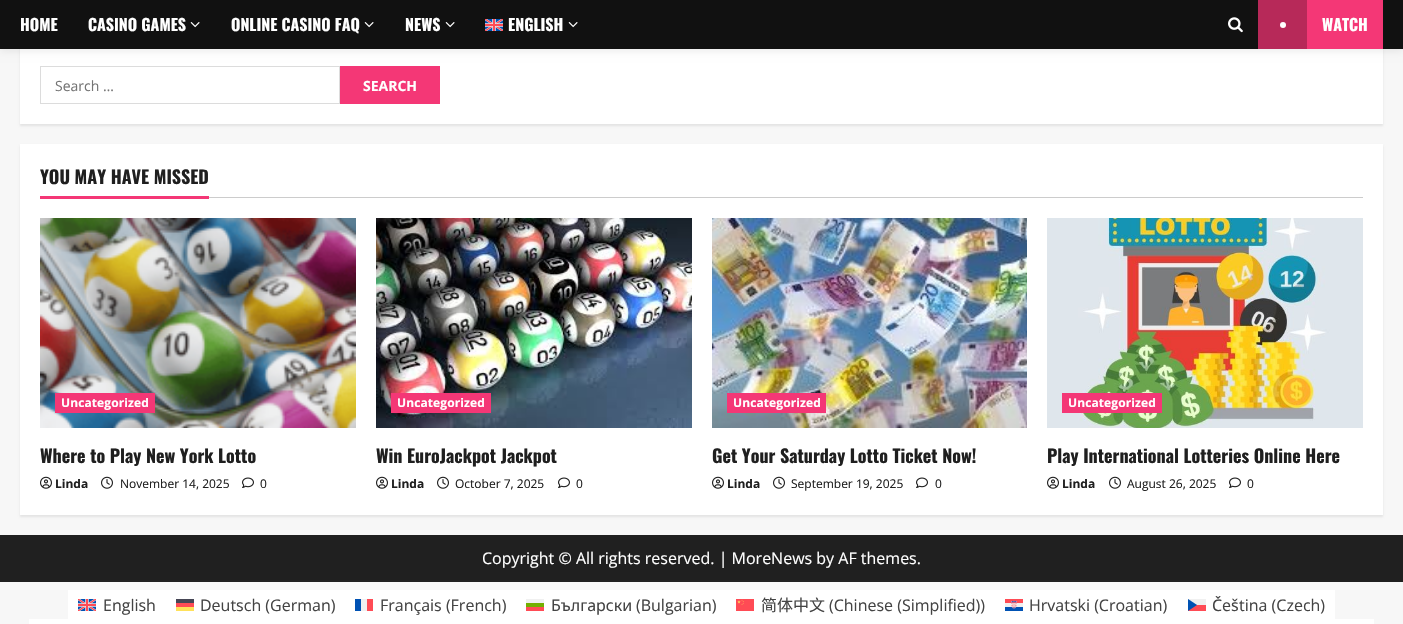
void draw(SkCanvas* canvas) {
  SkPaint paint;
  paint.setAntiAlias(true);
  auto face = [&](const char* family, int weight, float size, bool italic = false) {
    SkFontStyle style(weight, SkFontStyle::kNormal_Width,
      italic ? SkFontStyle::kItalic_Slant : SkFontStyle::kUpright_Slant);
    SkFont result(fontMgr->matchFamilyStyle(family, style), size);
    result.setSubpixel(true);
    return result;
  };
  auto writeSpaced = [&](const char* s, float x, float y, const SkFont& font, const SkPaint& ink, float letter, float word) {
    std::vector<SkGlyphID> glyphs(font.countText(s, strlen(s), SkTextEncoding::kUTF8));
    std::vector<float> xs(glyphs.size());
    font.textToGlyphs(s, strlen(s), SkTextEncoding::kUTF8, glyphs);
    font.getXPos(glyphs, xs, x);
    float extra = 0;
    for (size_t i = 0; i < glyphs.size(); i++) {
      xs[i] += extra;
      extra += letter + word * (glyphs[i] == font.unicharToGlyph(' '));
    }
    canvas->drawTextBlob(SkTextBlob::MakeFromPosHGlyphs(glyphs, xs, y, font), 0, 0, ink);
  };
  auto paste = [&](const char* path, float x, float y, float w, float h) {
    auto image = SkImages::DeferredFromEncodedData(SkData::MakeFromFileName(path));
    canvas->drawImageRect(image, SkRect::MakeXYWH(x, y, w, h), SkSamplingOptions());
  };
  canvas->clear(0xfff7f7f7);
  paint.setColor(0x14000000);
  paint.setMaskFilter(SkMaskFilter::MakeBlur(kNormal_SkBlurStyle, 1));
  canvas->drawRect(SkRect::MakeXYWH(20, -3, 1363, 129), paint);
  paint.setMaskFilter(nullptr);
  paint.setColor(0xffffffff);
  canvas->drawRect(SkRect::MakeXYWH(20, 49, 1363, 75), paint);
  paint.setColor(0x14000000);
  paint.setMaskFilter(SkMaskFilter::MakeBlur(kNormal_SkBlurStyle, 4));
  canvas->drawRect(SkRect::MakeXYWH(0, 2, 1403, 49), paint);
  paint.setMaskFilter(nullptr);
  paint.setColor(0xff111111);
  canvas->drawRect(SkRect::MakeXYWH(0, 0, 1403, 49), paint);
  paste("img/1.png", 190, 22, 10, 6);
  paste("img/1.png", 364, 22, 10, 6);
  paste("img/1.png", 445, 22, 10, 6);
  paste("img/2.png", 485, 19, 18, 12);
  paste("img/1.png", 568, 22, 10, 6);
  paste("img/3.png", 1228, 17, 15, 16);
  paint.setColor(0xfff43776);
  canvas->drawRect(SkRect::MakeXYWH(1307, 0, 76, 49), paint);
  paint.setColor(0xffb72959);
  canvas->drawRect(SkRect::MakeXYWH(1258, 0, 49, 49), paint);
  paint.setColor(0xffffffff);
  canvas->drawCircle(1283, 25, 3, paint);
  paint.setStroke(true);
  paint.setStrokeWidth(1);
  paint.setColor(0xffdcdcdc);
  canvas->drawRect(SkRect::MakeXYWH(40.5f, 66.5f, 299, 37), paint);
  paint.setStroke(false);
  paint.setColor(0xfff43776);
  canvas->drawRect(SkRect::MakeXYWH(340, 66, 100, 38), paint);
  paint.setColor(0x14000000);
  paint.setMaskFilter(SkMaskFilter::MakeBlur(kNormal_SkBlurStyle, 1));
  canvas->drawRect(SkRect::MakeXYWH(20, 146, 1363, 371), paint);
  paint.setMaskFilter(nullptr);
  {
    const struct { float x, y, w, h; SkColor color; } items[] = {
      {20, 144, 1363, 371, 0xffffffff},
      {209, 197, 1154, 1, 0xffcccccc},
      {40, 196, 169, 3, 0xfff43776},
    };
    for (auto [x, y, w, h, color] : items) {
      paint.setColor(color);
      canvas->drawRect(SkRect::MakeXYWH(x, y, w, h), paint);
    }
  }
  paste("img/4.png", 40, 218, 316, 210);
  canvas->drawRect(SkRect::MakeXYWH(55, 393, 100, 20), paint);
  paste("img/5.png", 40, 476, 12, 13);
  paste("img/6.png", 101, 476, 12, 13);
  paste("img/7.png", 242, 477, 12, 11);
  paste("img/8.png", 376, 218, 316, 210);
  canvas->drawRect(SkRect::MakeXYWH(391, 393, 100, 20), paint);
  paste("img/5.png", 376, 476, 12, 13);
  paste("img/6.png", 437, 476, 12, 13);
  paste("img/7.png", 558, 477, 12, 11);
  paste("img/9.png", 712, 218, 315, 210);
  canvas->drawRect(SkRect::MakeXYWH(727, 393, 99, 20), paint);
  paste("img/5.png", 712, 476, 12, 13);
  paste("img/6.png", 773, 476, 12, 13);
  paste("img/7.png", 916, 477, 12, 11);
  paste("img/10.png", 1047, 218, 316, 210);
  canvas->drawRect(SkRect::MakeXYWH(1062, 393, 100, 20), paint);
  paste("img/5.png", 1047, 476, 12, 13);
  paste("img/6.png", 1109, 476, 12, 13);
  paste("img/7.png", 1229, 477, 12, 11);
  paint.setColor(0xff202020);
  canvas->drawRect(SkRect::MakeXYWH(0, 535, 1403, 47), paint);
  paint.setColor(0xffffffff);
  canvas->drawRect(SkRect::MakeXYWH(68, 590, 1267, 29), paint);
  paste("img/2.png", 78, 599, 18, 12);
  {
    const struct { float x, y, w, h; SkColor color; } items[] = {
      {176, 599, 18, 4, 0xff464655},
      {176, 603, 18, 4, 0xffff4b55},
      {176, 607, 18, 4, 0xffffe15a},
      {355, 599, 6, 12, 0xff0052b4},
      {361, 599, 6, 12, 0xfff0f0f0},
      {367, 599, 6, 12, 0xffff4b55},
      {526, 599, 18, 4, 0xfff0f0f0},
      {526, 603, 18, 4, 0xff73af00},
      {526, 607, 18, 4, 0xffff4b55},
    };
    for (auto [x, y, w, h, color] : items) {
      paint.setColor(color);
      canvas->drawRect(SkRect::MakeXYWH(x, y, w, h), paint);
    }
  }
  paste("img/11.png", 736, 599, 18, 12);
  paste("img/12.png", 1005, 599, 18, 12);
  paste("img/13.png", 1188, 599, 18, 12);
  paint.setColor(0xffffffff);
  canvas->drawRect(SkRect::MakeXYWH(29, 619, 1345, 5), paint);
  auto f0 = face("Oswald", 700, 16);
  {
    const struct { const char* s; float x, y; } items[] = {
      {"HOME", 20, 31},
      {"CASINO GAMES", 88, 31},
      {"ONLINE CASINO FAQ", 231, 31},
      {"NEWS", 405, 31},
      {"ENGLISH", 508, 31},
      {"WATCH", 1322, 31},
    };
    for (auto [s, x, y] : items) {
      canvas->drawString(s, x, y, f0, paint);
    }
  }
  auto f1 = face("Open Sans", 400, 14);
  paint.setColor(0xff757575);
  canvas->drawString("Search …", 55, 91, f1, paint);
  auto f2 = face("Open Sans", 700, 14);
  paint.setColor(0xffffffff);
  canvas->drawString("SEARCH", 363, 91, f2, paint);
  auto f3 = face("Oswald", 700, 18);
  paint.setColor(0xff1f1f1f);
  canvas->drawString("YOU MAY HAVE MISSED", 40, 184, f3, paint);
  auto f4 = face("Open Sans", 700, 12);
  paint.setColor(0xffffffff);
  writeSpaced("Uncategorized", 61, 407, f4, paint, 0.1f, 0);
  paint.setColor(0xff1f1f1f);
  canvas->drawString("Where to Play New York Lotto", 40, 463, f3, paint);
  canvas->drawString("Linda", 55, 488, f4, paint);
  auto f5 = face("Open Sans", 400, 12);
  canvas->drawString("November 14, 2025", 120, 488, f5, paint);
  canvas->drawString("0", 260, 488, f5, paint);
  paint.setColor(0xffffffff);
  writeSpaced("Uncategorized", 397, 407, f4, paint, 0.1f, 0);
  paint.setColor(0xff1f1f1f);
  canvas->drawString("Win EuroJackpot Jackpot", 376, 463, f3, paint);
  canvas->drawString("Linda", 391, 488, f4, paint);
  canvas->drawString("October 7, 2025", 455, 488, f5, paint);
  canvas->drawString("0", 576, 488, f5, paint);
  paint.setColor(0xffffffff);
  writeSpaced("Uncategorized", 733, 407, f4, paint, 0.1f, 0);
  paint.setColor(0xff1f1f1f);
  canvas->drawString("Get Your Saturday Lotto Ticket Now!", 712, 463, f3, paint);
  canvas->drawString("Linda", 727, 488, f4, paint);
  canvas->drawString("September 19, 2025", 791, 488, f5, paint);
  canvas->drawString("0", 935, 488, f5, paint);
  paint.setColor(0xffffffff);
  writeSpaced("Uncategorized", 1068, 407, f4, paint, 0.1f, 0);
  paint.setColor(0xff1f1f1f);
  canvas->drawString("Play International Lotteries Online Here", 1047, 463, f3, paint);
  canvas->drawString("Linda", 1062, 488, f4, paint);
  canvas->drawString("August 26, 2025", 1127, 488, f5, paint);
  canvas->drawString("0", 1247, 488, f5, paint);
  auto f6 = face("Open Sans", 400, 16);
  paint.setColor(0xffffffff);
  canvas->drawString("Copyright © All rights reserved. | MoreNews by AF themes.", 482, 564, f6, paint);
  paint.setColor(0xff444444);
  {
    const struct { const char* s; float x, y; } items[] = {
      {"English", 103, 611},
      {"Deutsch (German)", 200, 611},
      {"Français (French)", 380, 611},
    };
    for (auto [s, x, y] : items) {
      canvas->drawString(s, x, y, f6, paint);
    }
  }
  auto f7 = face("Noto Sans", 400, 16);
  canvas->drawString("Български", 551, 611, f7, paint);
  canvas->drawString("(Bulgarian)", 636, 611, f6, paint);
  auto f8 = face("Noto Sans CJK SC", 400, 16);
  canvas->drawString("简体中文", 761, 611, f8, paint);
  canvas->drawString("(Chinese (Simplified))", 829, 611, f6, paint);
  canvas->drawString("Hrvatski (Croatian)", 1029, 611, f6, paint);
  canvas->drawString("Č", 1212, 611, f7, paint);
  canvas->drawString("e", 1222, 611, f6, paint);
  canvas->drawString("š", 1231, 611, f7, paint);
  canvas->drawString("tina (Czech)", 1239, 611, f6, paint);
}
